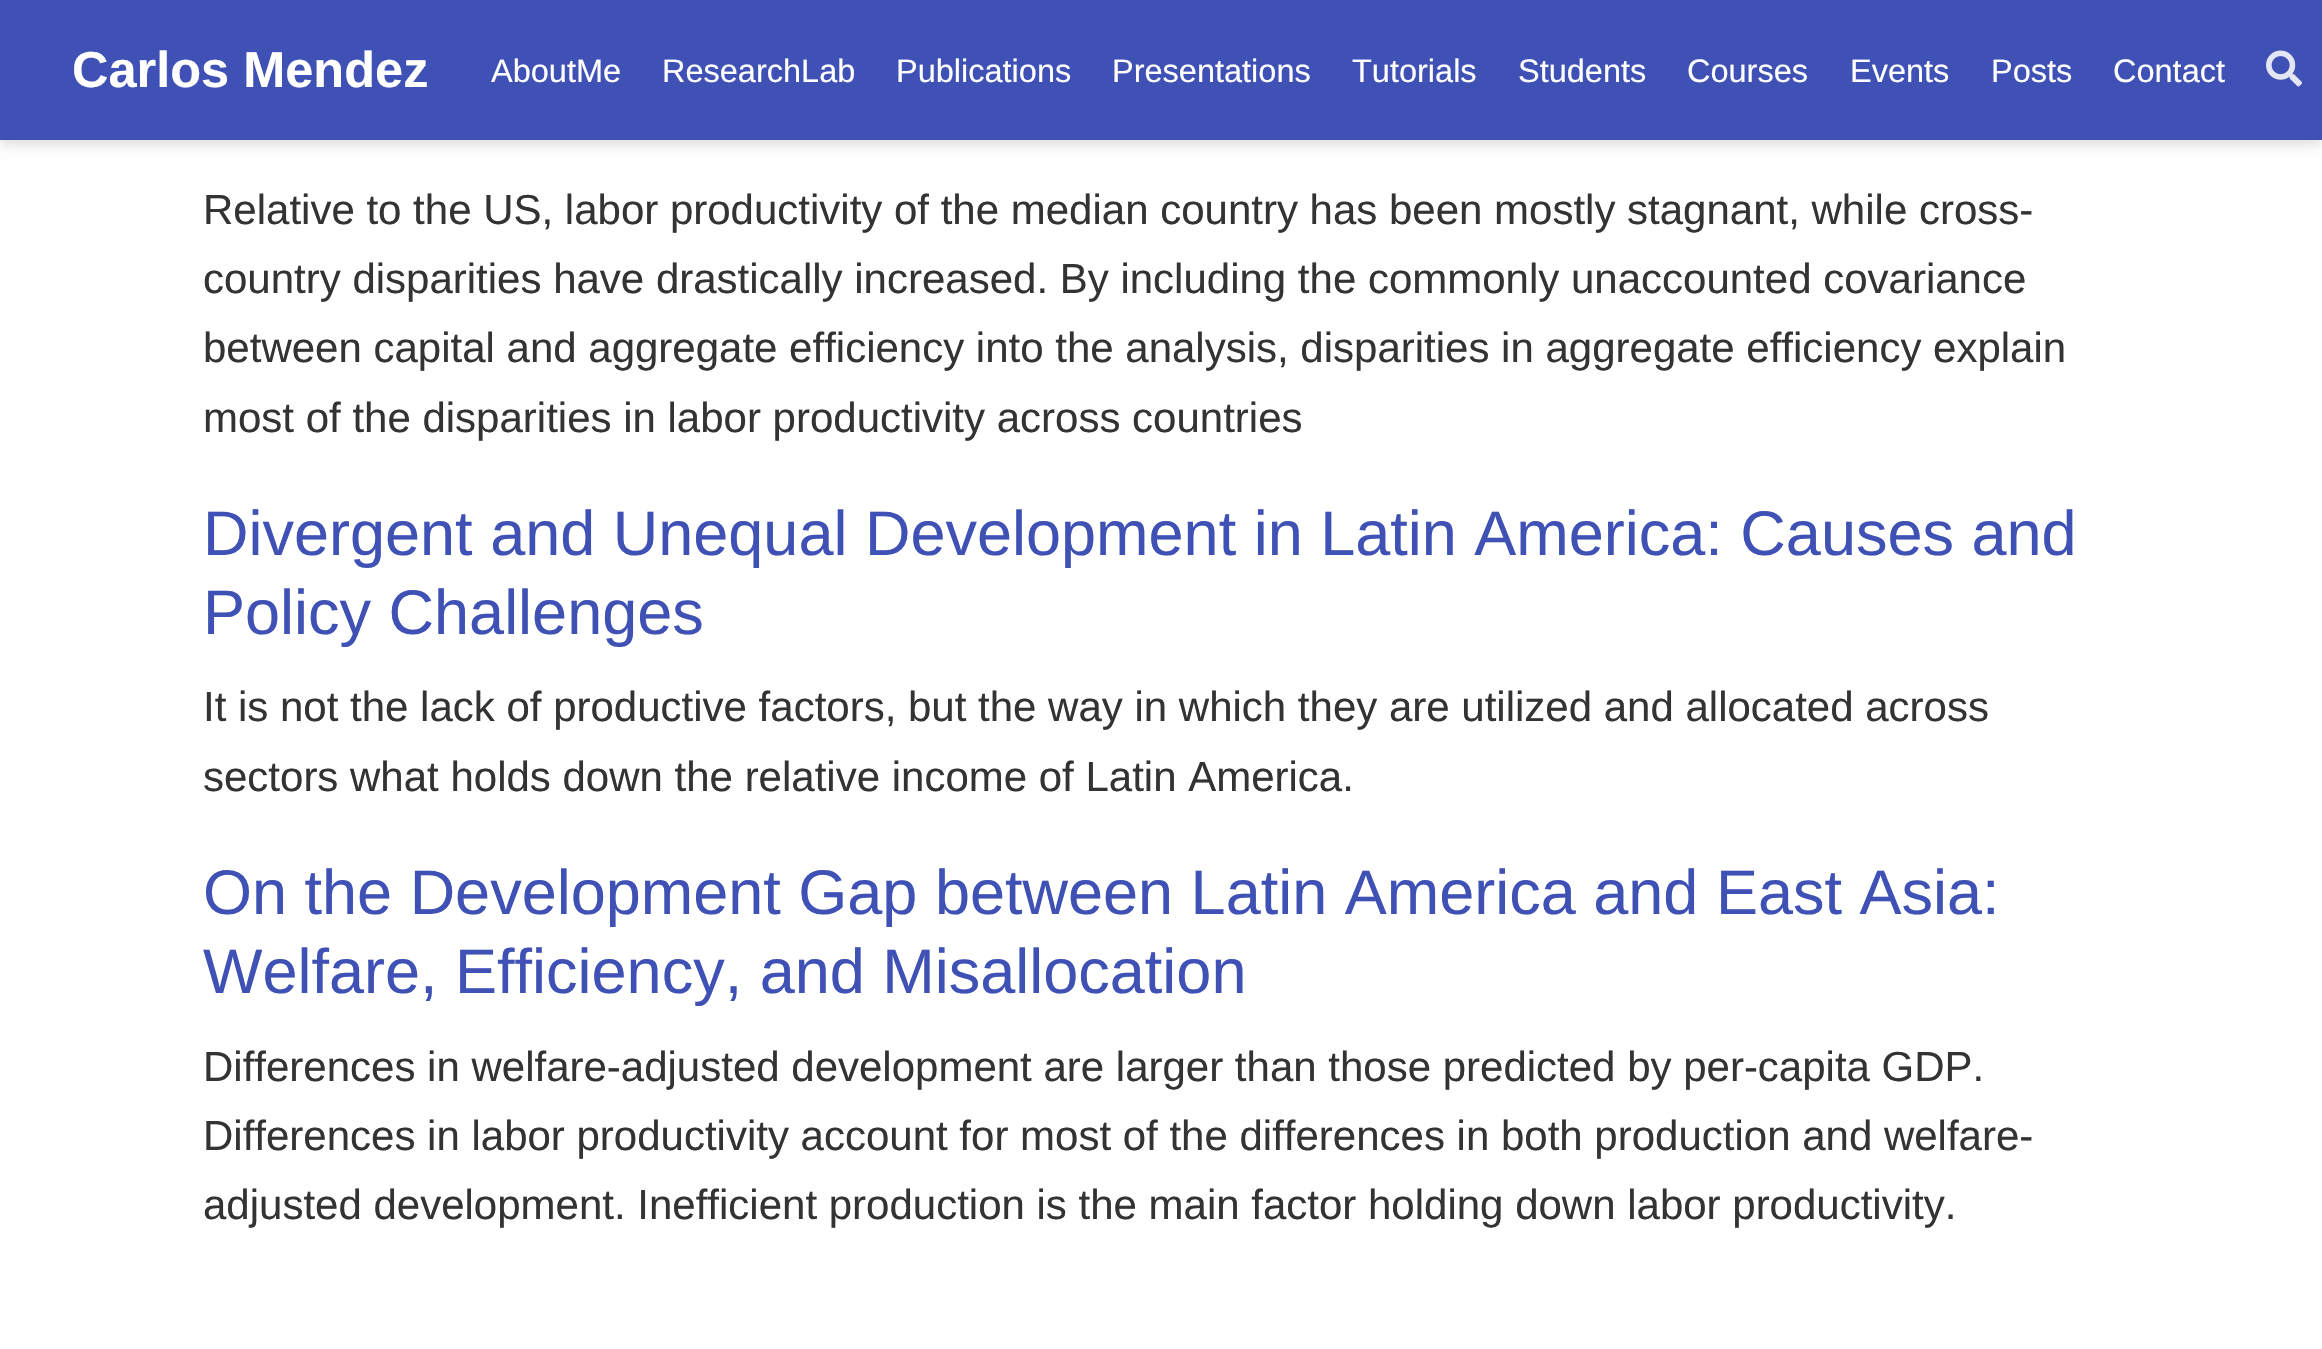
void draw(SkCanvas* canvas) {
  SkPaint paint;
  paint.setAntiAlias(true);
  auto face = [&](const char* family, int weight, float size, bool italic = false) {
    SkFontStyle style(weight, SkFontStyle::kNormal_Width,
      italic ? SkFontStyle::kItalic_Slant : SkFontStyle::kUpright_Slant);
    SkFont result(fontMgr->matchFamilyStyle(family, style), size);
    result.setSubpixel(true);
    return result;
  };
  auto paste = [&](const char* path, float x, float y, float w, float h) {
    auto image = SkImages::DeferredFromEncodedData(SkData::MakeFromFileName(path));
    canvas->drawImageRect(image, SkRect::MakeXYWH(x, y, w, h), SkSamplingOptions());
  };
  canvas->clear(0xffffffff);
  paint.setColor(0x1c000000);
  paint.setMaskFilter(SkMaskFilter::MakeBlur(kNormal_SkBlurStyle, 5));
  canvas->drawRect(SkRect::MakeXYWH(0, 6, 2322, 140), paint);
  paint.setMaskFilter(nullptr);
  paint.setColor(0xff3f51b5);
  canvas->drawRect(SkRect::MakeXYWH(0, 0, 2322, 140), paint);
  paste("img/1.png", 2266, 50, 36, 37);
  auto f0 = face("Liberation Sans", 700, 50.5f);
  paint.setColor(0xffffffff);
  canvas->drawString("Carlos Mendez", 72, 87, f0, paint);
  auto f1 = face("Liberation Sans", 400, 32.5f);
  {
    const struct { const char* s; float x, y; } items[] = {
      {"AboutMe", 491, 82},
      {"ResearchLab", 662, 82},
      {"Publications", 896, 82},
      {"Presentations", 1112, 82},
      {"Tutorials", 1352, 82},
      {"Students", 1518, 82},
      {"Courses", 1687, 82},
      {"Events", 1850, 82},
      {"Posts", 1991, 82},
      {"Contact", 2113, 82},
    };
    for (auto [s, x, y] : items) {
      canvas->drawString(s, x, y, f1, paint);
    }
  }
  auto f2 = face("Liberation Sans", 400, 42);
  paint.setColor(0xff333333);
  {
    const struct { const char* s; float x, y; } items[] = {
      {"Relative to the US, labor productivity of the median country has been mostly stagnant, while cross-", 203, 224},
      {"country disparities have drastically increased. By including the commonly unaccounted covariance", 203, 293},
      {"between capital and aggregate efficiency into the analysis, disparities in aggregate efficiency explain", 203, 362},
      {"most of the disparities in labor productivity across countries", 203, 432},
    };
    for (auto [s, x, y] : items) {
      canvas->drawString(s, x, y, f2, paint);
    }
  }
  auto f3 = face("Liberation Sans", 400, 63);
  paint.setColor(0xff3f51b5);
  canvas->drawString("Divergent and Unequal Development in Latin America: Causes and", 203, 555, f3, paint);
  canvas->drawString("Policy Challenges", 203, 634, f3, paint);
  paint.setColor(0xff333333);
  canvas->drawString("It is not the lack of productive factors, but the way in which they are utilized and allocated across", 203, 721, f2, paint);
  canvas->drawString("sectors what holds down the relative income of Latin America.", 203, 791, f2, paint);
  paint.setColor(0xff3f51b5);
  canvas->drawString("On the Development Gap between Latin America and East Asia:", 203, 914, f3, paint);
  canvas->drawString("Welfare, Efficiency, and Misallocation", 203, 993, f3, paint);
  paint.setColor(0xff333333);
  {
    const struct { const char* s; float x, y; } items[] = {
      {"Differences in welfare-adjusted development are larger than those predicted by per-capita GDP.", 203, 1081},
      {"Differences in labor productivity account for most of the differences in both production and welfare-", 203, 1150},
      {"adjusted development. Inefficient production is the main factor holding down labor productivity.", 203, 1219},
    };
    for (auto [s, x, y] : items) {
      canvas->drawString(s, x, y, f2, paint);
    }
  }
}
